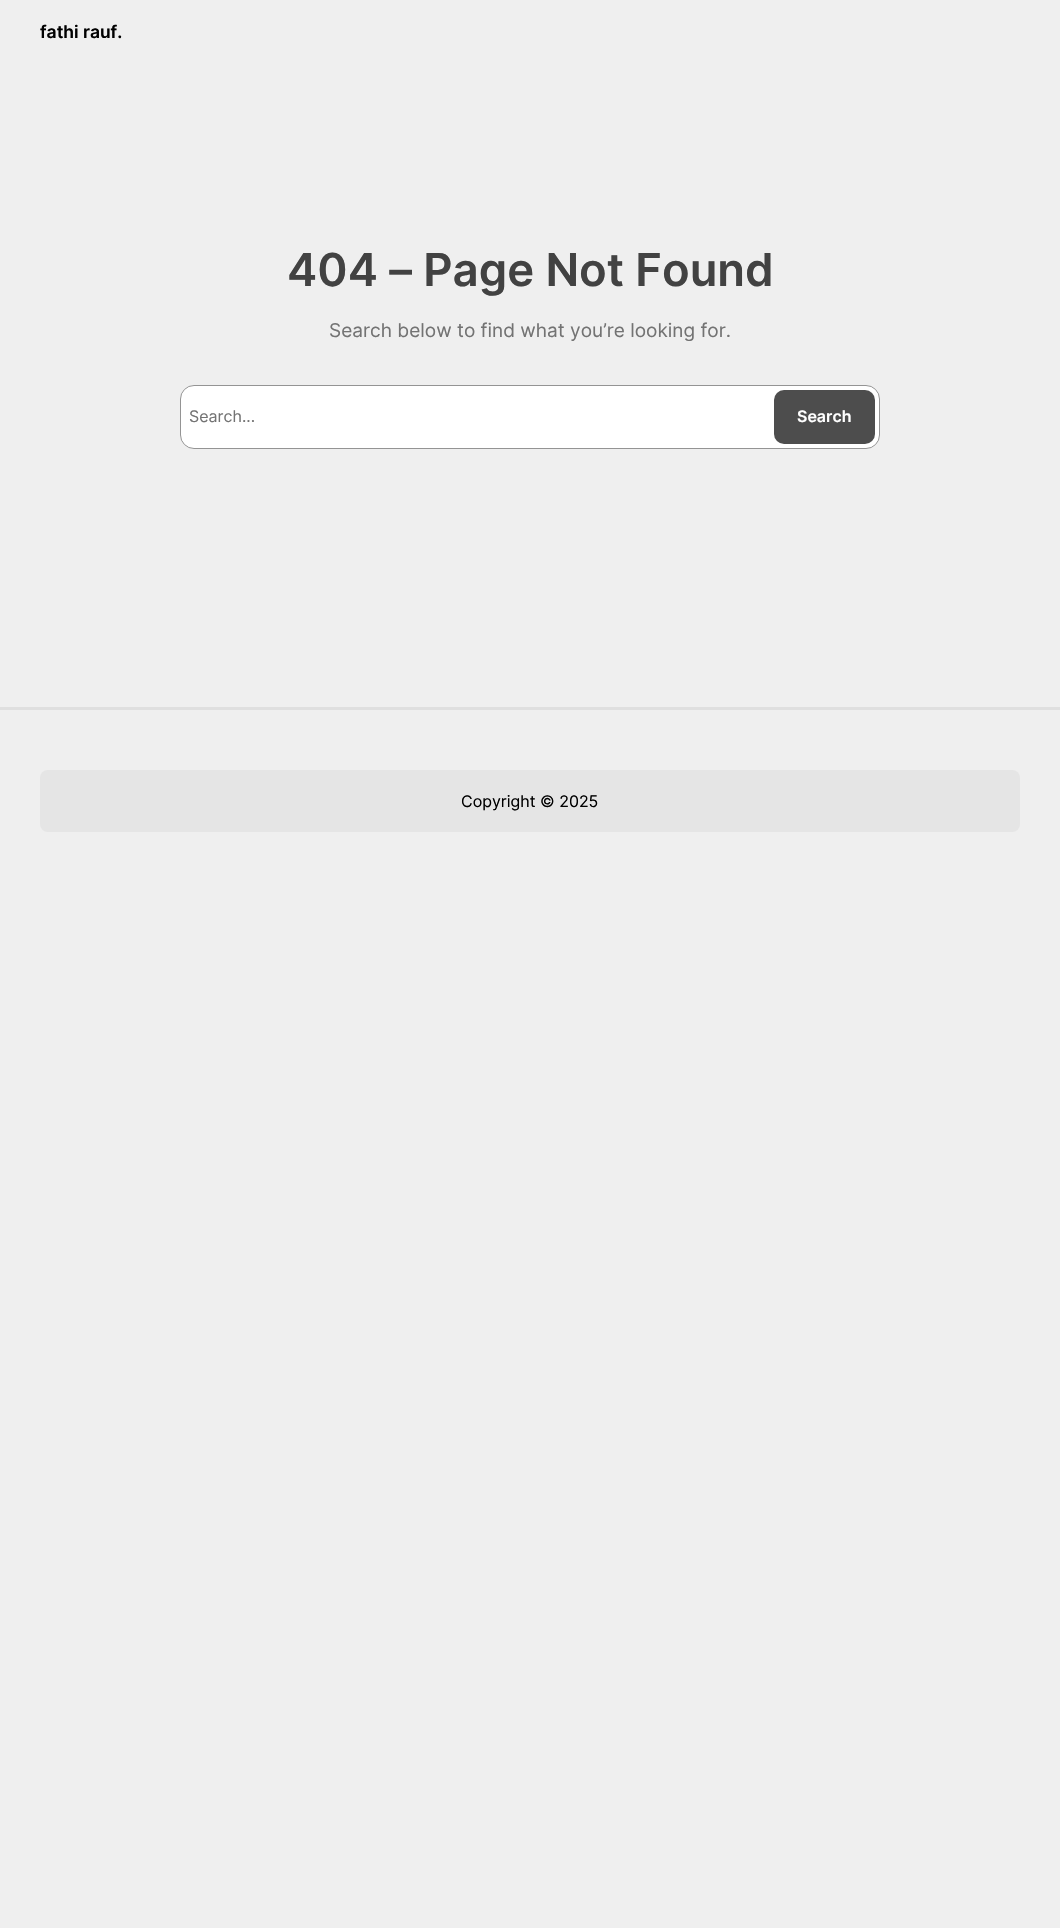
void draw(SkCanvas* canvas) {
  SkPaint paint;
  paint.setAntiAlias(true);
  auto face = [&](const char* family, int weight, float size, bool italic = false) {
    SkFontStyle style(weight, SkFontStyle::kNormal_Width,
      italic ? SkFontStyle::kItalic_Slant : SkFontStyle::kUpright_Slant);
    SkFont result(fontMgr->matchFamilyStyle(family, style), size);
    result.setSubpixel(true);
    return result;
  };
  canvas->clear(0xffefefef);
  paint.setColor(0xffffffff);
  canvas->drawRoundRect(SkRect::MakeXYWH(180.5f, 385.5f, 699, 63), 13.5f, 13.5f, paint);
  paint.setStroke(true);
  paint.setStrokeWidth(1);
  paint.setColor(0xff949494);
  canvas->drawRoundRect(SkRect::MakeXYWH(180.5f, 385.5f, 699, 63), 13.5f, 13.5f, paint);
  paint.setStroke(false);
  paint.setColor(0xff4d4d4d);
  canvas->drawRoundRect(SkRect::MakeXYWH(774, 390, 101, 54), 10, 10, paint);
  paint.setColor(0xffdfdfdf);
  canvas->drawRect(SkRect::MakeXYWH(0, 707, 1060, 3), paint);
  paint.setColor(0xffe5e5e5);
  canvas->drawRoundRect(SkRect::MakeXYWH(40, 770, 980, 62), 8, 8, paint);
  auto f0 = face("Inter", 600, 17.5f);
  paint.setColor(0xff000000);
  canvas->drawString("fathi rauf.", 40, 38, f0, paint);
  auto f1 = face("Inter", 600, 45.5f);
  paint.setColor(0xff424242);
  canvas->drawString("404 – Page Not Found", 287, 286, f1, paint);
  auto f2 = face("Inter", 400, 19.05f);
  paint.setColor(0xff737373);
  canvas->drawString("Search below to find what you’re looking for.", 329, 337, f2, paint);
  auto f3 = face("Inter", 400, 16);
  canvas->drawString("Search...", 189, 422, f3, paint);
  auto f4 = face("Inter", 600, 16);
  paint.setColor(0xffffffff);
  canvas->drawString("Search", 797, 422, f4, paint);
  paint.setColor(0xff000000);
  canvas->drawString("Copyright © 2025", 461, 807, f3, paint);
}
